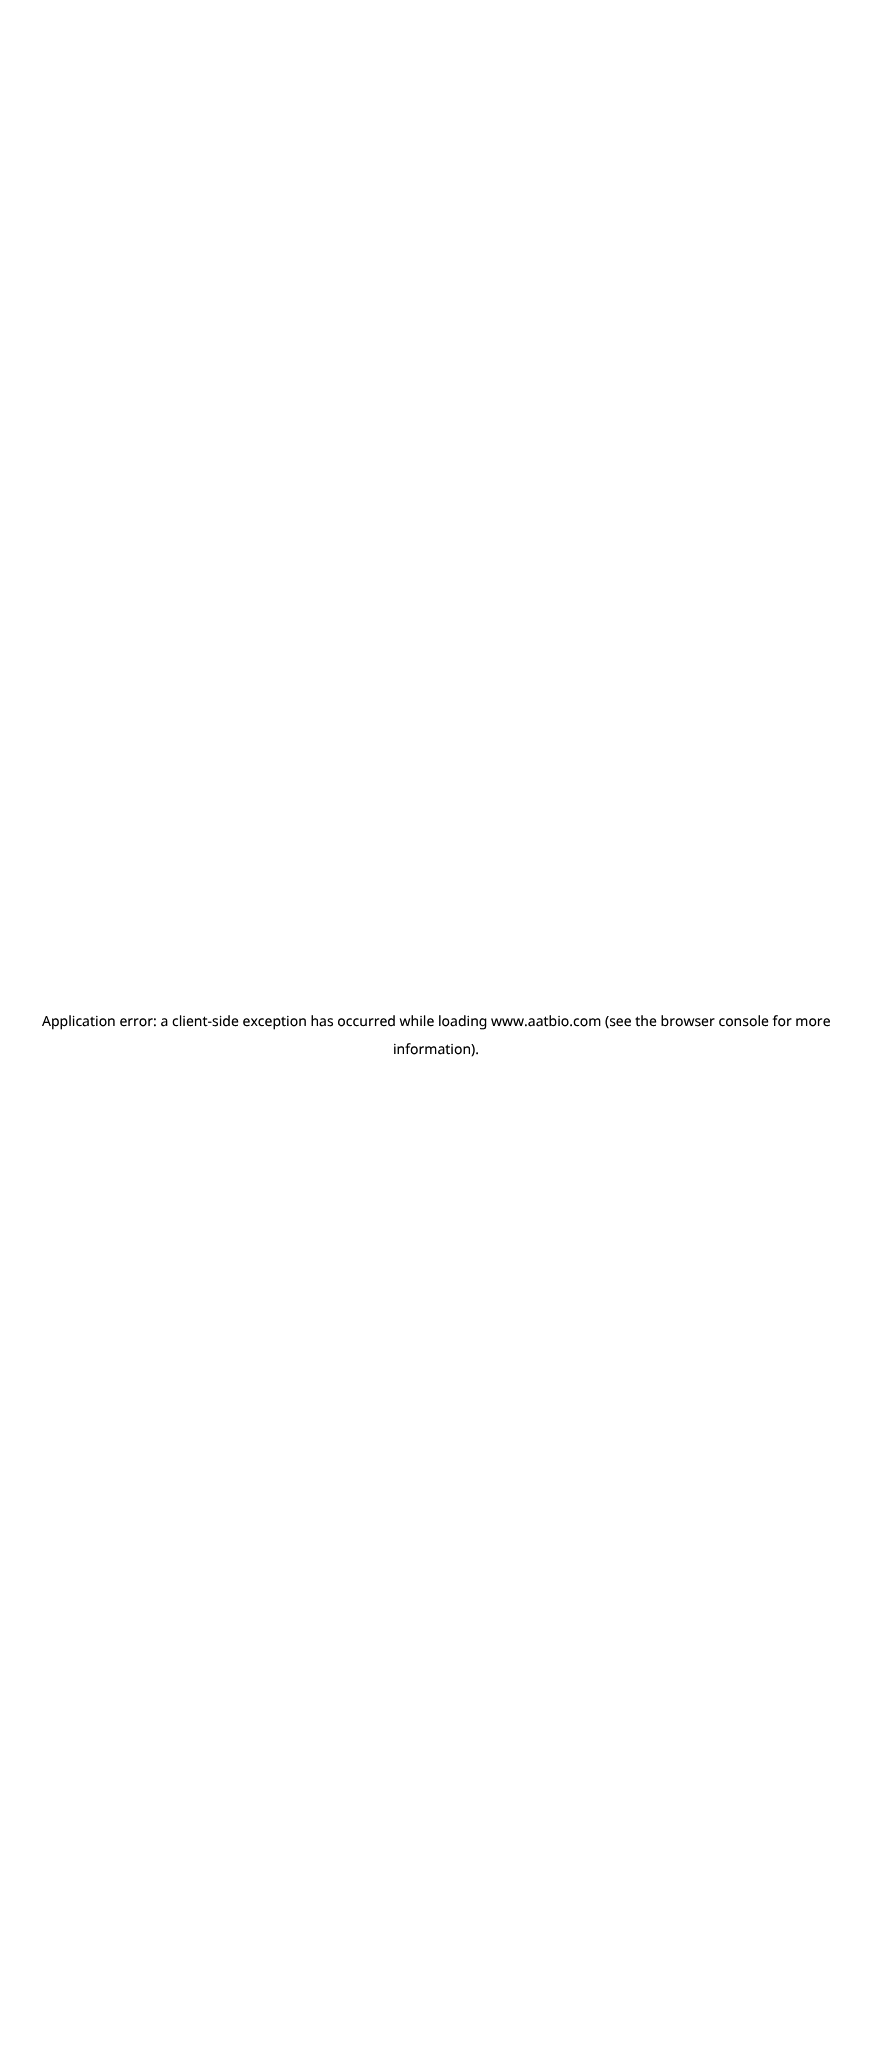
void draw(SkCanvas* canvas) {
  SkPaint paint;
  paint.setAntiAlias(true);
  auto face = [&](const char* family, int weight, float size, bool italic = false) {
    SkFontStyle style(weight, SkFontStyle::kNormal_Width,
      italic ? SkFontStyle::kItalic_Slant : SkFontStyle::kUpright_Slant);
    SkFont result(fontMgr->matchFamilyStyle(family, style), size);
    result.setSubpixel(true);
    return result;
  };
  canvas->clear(0xffffffff);
  auto f0 = face("Noto Sans", 400, 14);
  paint.setColor(0xff000000);
  canvas->drawString("Application error: a client-side exception has occurred while loading www.aatbio.com (see the browser console for more", 42, 1026, f0, paint);
  canvas->drawString("information).", 393, 1054, f0, paint);
}
